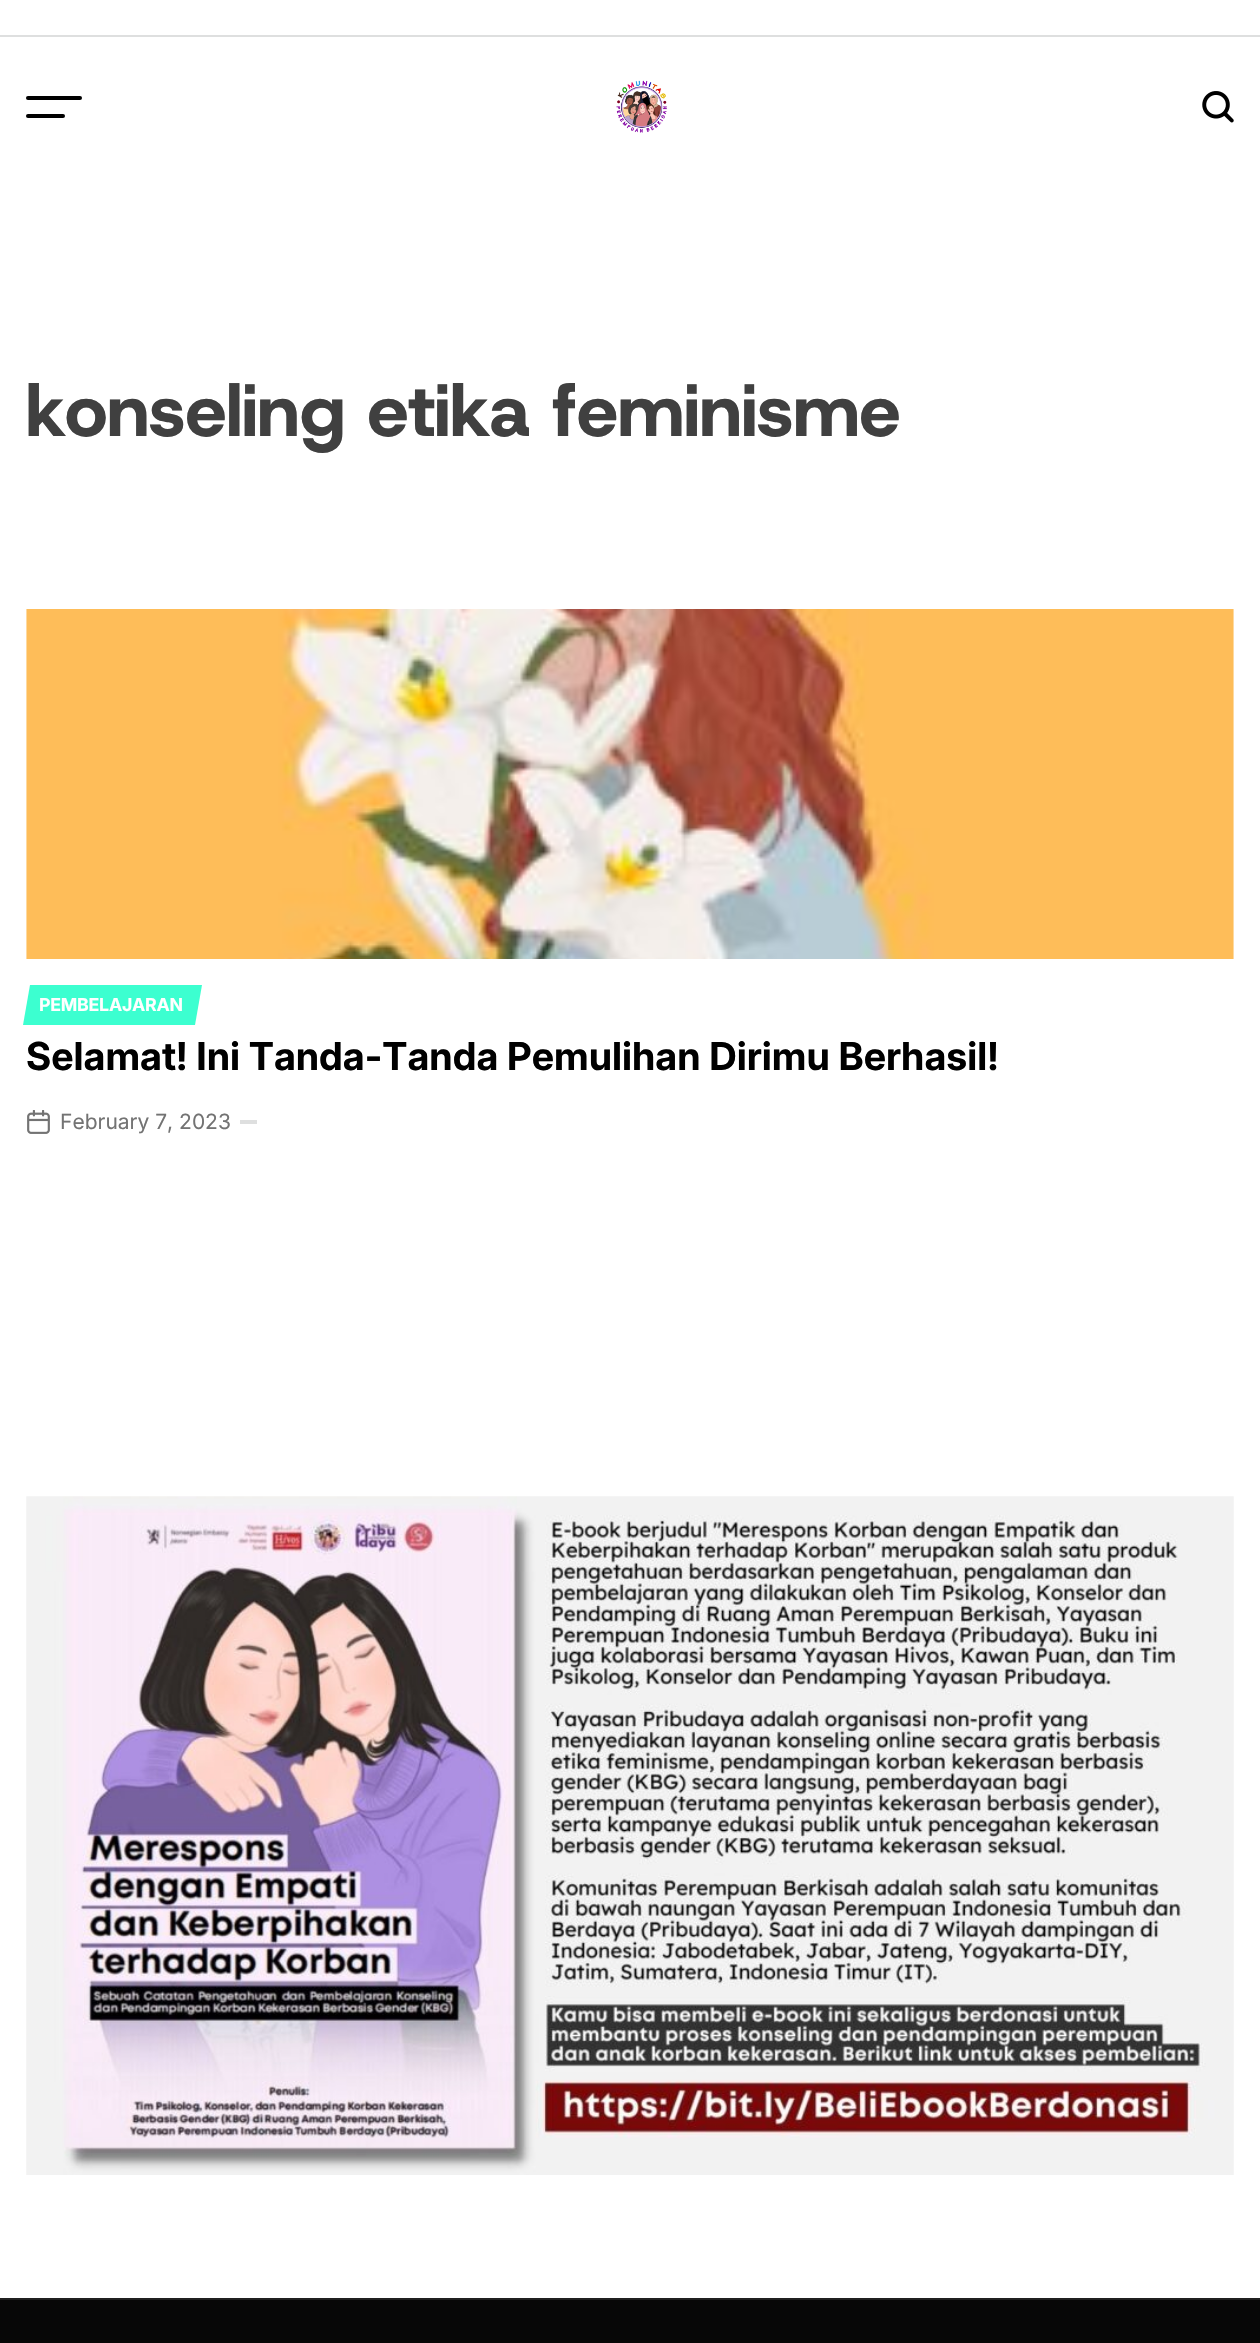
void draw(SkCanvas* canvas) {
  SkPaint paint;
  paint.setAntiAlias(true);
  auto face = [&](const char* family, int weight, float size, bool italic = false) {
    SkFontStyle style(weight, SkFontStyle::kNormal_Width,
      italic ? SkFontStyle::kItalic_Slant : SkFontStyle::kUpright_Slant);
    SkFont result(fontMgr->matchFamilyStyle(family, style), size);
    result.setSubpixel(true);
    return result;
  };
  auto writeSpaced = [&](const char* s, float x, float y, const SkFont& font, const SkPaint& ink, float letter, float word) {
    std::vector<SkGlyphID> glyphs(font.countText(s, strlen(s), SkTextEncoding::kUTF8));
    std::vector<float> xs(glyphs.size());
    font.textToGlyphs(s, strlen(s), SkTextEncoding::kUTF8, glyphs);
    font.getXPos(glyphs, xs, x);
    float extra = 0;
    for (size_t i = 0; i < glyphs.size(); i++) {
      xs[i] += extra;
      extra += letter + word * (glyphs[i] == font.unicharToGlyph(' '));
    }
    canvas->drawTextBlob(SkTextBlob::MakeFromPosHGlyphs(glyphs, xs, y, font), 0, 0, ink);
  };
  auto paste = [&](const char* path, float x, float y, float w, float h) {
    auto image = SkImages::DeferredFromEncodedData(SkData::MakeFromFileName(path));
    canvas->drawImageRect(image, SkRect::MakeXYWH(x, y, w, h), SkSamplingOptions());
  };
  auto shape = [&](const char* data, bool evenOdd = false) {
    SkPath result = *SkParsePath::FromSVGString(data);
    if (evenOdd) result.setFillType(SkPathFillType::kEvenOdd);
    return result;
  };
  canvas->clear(0xffffffff);
  paint.setColor(0xffdedfdf);
  canvas->drawRect(SkRect::MakeXYWH(0, 35, 1260, 2), paint);
  paint.setColor(0xff000000);
  canvas->drawRoundRect(SkRect::MakeXYWH(26, 96, 56, 4), 2, 2, paint);
  canvas->drawRoundRect(SkRect::MakeXYWH(26, 114, 39, 4), 2, 2, paint);
  paste("img/1.png", 616, 80, 51, 53);
  paste("img/2.png", 1202, 91, 32, 32);
  paste("img/3.png", 26, 609, 1208, 350);
  paint.setColor(0xff3cffd0);
  canvas->drawPath(shape("M30 985H202L195 1025H23Z"), paint);
  paste("img/4.png", 27, 1110, 23, 24);
  paint.setColor(0xffdedfdf);
  canvas->drawRect(SkRect::MakeXYWH(240, 1120, 17, 4), paint);
  paste("img/5.png", 26, 1496, 1208, 679);
  {
    const SkColor colors[] = {0x00070707, 0xff070707};
    const float stops[] = {0, 0.7f};
    const SkPoint ends[] = {{630, 0}, {630, 2343}};
    paint.setShader(SkGradientShader::MakeLinear(ends, colors, stops, 2, SkTileMode::kClamp));
    paint.setAlpha(255);
  }
  canvas->drawRect(SkRect::MakeXYWH(0, 2300, 1260, 43), paint);
  paint.setShader(nullptr);
  paint.setColor(0xff202020);
  canvas->drawRect(SkRect::MakeXYWH(0, 2298, 1260, 2), paint);
  auto f0 = face("Host Grotesk", 800, 73.5f);
  paint.setColor(0xff404040);
  canvas->drawString("konseling etika feminisme", 26, 436, f0, paint);
  auto f1 = face("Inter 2", 700, 17.75f);
  paint.setColor(0xffffffff);
  writeSpaced("PEMBELAJARAN", 39, 1011, f1, paint, -0.25f, 0);
  auto f2 = face("Inter", 700, 38.5f);
  paint.setColor(0xff000000);
  canvas->drawString("Selamat! Ini Tanda-Tanda Pemulihan Dirimu Berhasil!", 26, 1070, f2, paint);
  auto f3 = face("Inter", 400, 21);
  paint.setColor(0xff737373);
  canvas->drawString("February 7, 2023", 60, 1129, f3, paint);
}
